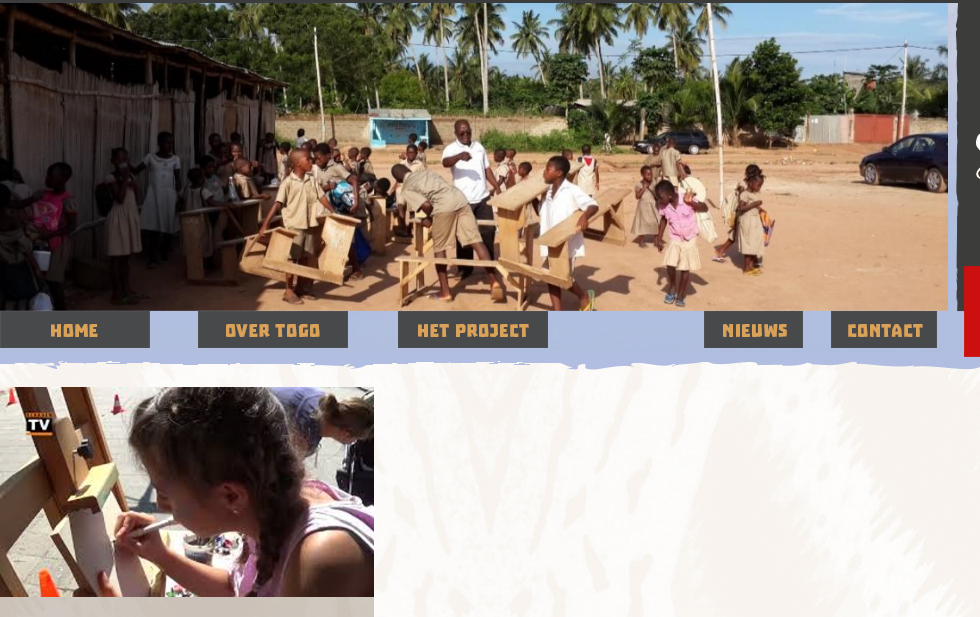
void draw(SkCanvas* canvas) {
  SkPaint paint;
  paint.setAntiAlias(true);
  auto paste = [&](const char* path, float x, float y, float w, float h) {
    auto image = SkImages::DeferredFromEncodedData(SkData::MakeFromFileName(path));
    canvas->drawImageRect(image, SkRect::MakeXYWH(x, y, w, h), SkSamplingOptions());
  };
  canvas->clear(0xffffffff);
  paste("img/1.png", 0, 0, 980, 617);
  paste("img/2.png", 958, 2, 22, 1);
  paste("img/3.png", 0, 3, 948, 308);
  paste("img/4.png", 956, 3, 24, 228);
  paste("img/5.png", 956, 231, 24, 45);
  paste("img/6.png", 956, 276, 24, 35);
  paste("img/7.png", 0, 352, 979, 14);
  paste("img/8.png", 0, 311, 150, 37);
  paste("img/9.png", 198, 311, 150, 37);
  paste("img/10.png", 398, 311, 150, 37);
  paste("img/11.png", 704, 311, 99, 37);
  paste("img/12.png", 831, 311, 106, 37);
  paste("img/13.png", 957, 311, 23, 46);
  paint.setColor(0x4d655137);
  canvas->drawRect(SkRect::MakeXYWH(0, 597, 374, 20), paint);
  paste("img/14.png", 0, 387, 374, 210);
}
